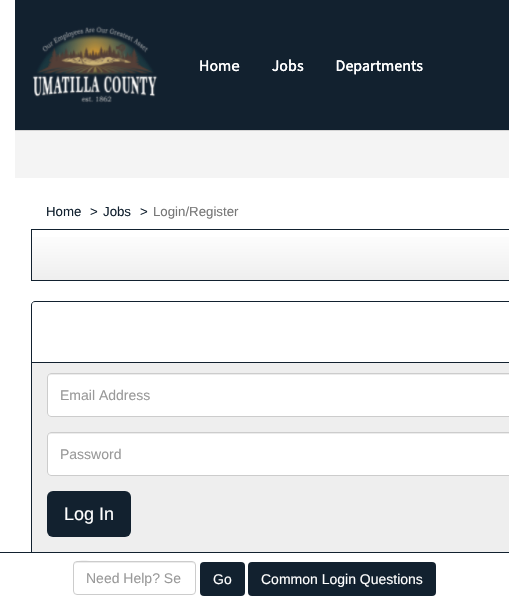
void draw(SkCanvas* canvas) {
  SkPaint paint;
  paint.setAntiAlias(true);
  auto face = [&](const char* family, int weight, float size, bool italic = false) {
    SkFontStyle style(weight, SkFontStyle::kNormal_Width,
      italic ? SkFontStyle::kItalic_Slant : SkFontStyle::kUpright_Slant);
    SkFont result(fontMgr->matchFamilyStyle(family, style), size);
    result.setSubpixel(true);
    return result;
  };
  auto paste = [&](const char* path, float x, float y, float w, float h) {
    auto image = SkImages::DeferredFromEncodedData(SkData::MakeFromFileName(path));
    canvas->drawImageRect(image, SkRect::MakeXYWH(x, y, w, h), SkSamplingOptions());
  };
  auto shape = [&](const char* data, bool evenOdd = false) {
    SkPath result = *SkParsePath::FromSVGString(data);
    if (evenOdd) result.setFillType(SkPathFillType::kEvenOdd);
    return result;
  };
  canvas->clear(0xffffffff);
  paste("img/1.png", 15, 0, 494, 178);
  {
    const SkColor colors[] = {0xffffffff, 0xffeeeeee};
    const float stops[] = {0, 1};
    const SkPoint ends[] = {{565, 230}, {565, 280}};
    paint.setShader(SkGradientShader::MakeLinear(ends, colors, stops, 2, SkTileMode::kClamp));
    paint.setAlpha(255);
  }
  canvas->drawRect(SkRect::MakeXYWH(32, 237, 477, 43), paint);
  paint.setStroke(true);
  paint.setStrokeWidth(1);
  paint.setShader(nullptr);
  paint.setColor(0xff12212f);
  canvas->drawRect(SkRect::MakeXYWH(31.5f, 229.5f, 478, 51), paint);
  canvas->drawPath(shape("M35 301.5H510C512 301.5 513.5 303 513.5 305V362.5H31.5V305C31.5 303 33 301.5 35 301.5Z"), paint);
  paint.setStroke(false);
  paint.setColor(0xffeeeeee);
  canvas->drawRect(SkRect::MakeXYWH(32, 363, 477, 189), paint);
  paint.setStroke(true);
  paint.setColor(0xff12212f);
  canvas->drawRect(SkRect::MakeXYWH(31.5f, 362.5f, 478, 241), paint);
  paint.setStroke(false);
  paint.setColor(0xffffffff);
  canvas->drawRoundRect(SkRect::MakeXYWH(47, 373, 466, 44), 4, 4, paint);
  paint.setColor(0xffececec);
  canvas->drawPath(shape("M51 375H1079C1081 375 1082 376 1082 378C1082 376 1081 374 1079 374H51C49 374 48 376 48 378C48 376 49 375 51 375Z"), paint);
  paint.setStroke(true);
  paint.setColor(0xffcccccc);
  canvas->drawRoundRect(SkRect::MakeXYWH(47.5f, 373.5f, 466, 43), 3.5f, 3.5f, paint);
  paint.setStroke(false);
  paint.setColor(0xffffffff);
  canvas->drawRoundRect(SkRect::MakeXYWH(47, 432, 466, 44), 4, 4, paint);
  paint.setColor(0xffececec);
  canvas->drawPath(shape("M51 434H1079C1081 434 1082 435 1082 437C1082 435 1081 433 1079 433H51C49 433 48 435 48 437C48 435 49 434 51 434Z"), paint);
  paint.setStroke(true);
  paint.setColor(0xffcccccc);
  canvas->drawRoundRect(SkRect::MakeXYWH(47.5f, 432.5f, 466, 43), 3.5f, 3.5f, paint);
  paint.setStroke(false);
  paint.setColor(0xff12212f);
  canvas->drawRoundRect(SkRect::MakeXYWH(47, 491, 84, 46), 6, 6, paint);
  paint.setColor(0xffffffff);
  canvas->drawRect(SkRect::MakeXYWH(31, 553, 1, 50), paint);
  paint.setColor(0xff12212f);
  canvas->drawRect(SkRect::MakeXYWH(0, 552, 509, 1), paint);
  paint.setColor(0xffececec);
  canvas->drawPath(shape("M77 563H192C194 563 195 564 195 566C195 564 194 562 192 562H96C95 562 74 557 74 566C74 564 75 563 77 563Z"), paint);
  paint.setStroke(true);
  paint.setColor(0xffcccccc);
  canvas->drawRoundRect(SkRect::MakeXYWH(73.5f, 561.5f, 122, 33), 3.5f, 3.5f, paint);
  paint.setStroke(false);
  paint.setColor(0xff12212f);
  canvas->drawRoundRect(SkRect::MakeXYWH(200, 562, 45, 34), 4, 4, paint);
  canvas->drawRoundRect(SkRect::MakeXYWH(248, 562, 188, 34), 4, 4, paint);
  auto f0 = face("Liberation Sans", 400, 13.25f);
  {
    const struct { const char* s; float x, y; } items[] = {
      {"Home", 46, 216},
      {">", 90, 216},
      {"Jobs", 103, 216},
      {">", 140, 216},
    };
    for (auto [s, x, y] : items) {
      canvas->drawString(s, x, y, f0, paint);
    }
  }
  paint.setColor(0xff777777);
  canvas->drawString("Login/Register", 153, 216, f0, paint);
  auto f1 = face("Liberation Sans", 400, 14);
  paint.setColor(0xff999999);
  canvas->drawString("Email Address", 60, 400, f1, paint);
  canvas->drawString("Password", 60, 459, f1, paint);
  auto f2 = face("Liberation Sans", 400, 18);
  paint.setColor(0xffffffff);
  canvas->drawString("Log In", 64, 520, f2, paint);
  paint.setColor(0xff999999);
  canvas->drawString("Need Help? Se", 86, 583, f1, paint);
  paint.setColor(0xffffffff);
  canvas->drawString("Go", 213, 584, f1, paint);
  canvas->drawString("Common Login Questions", 261, 584, f1, paint);
}
